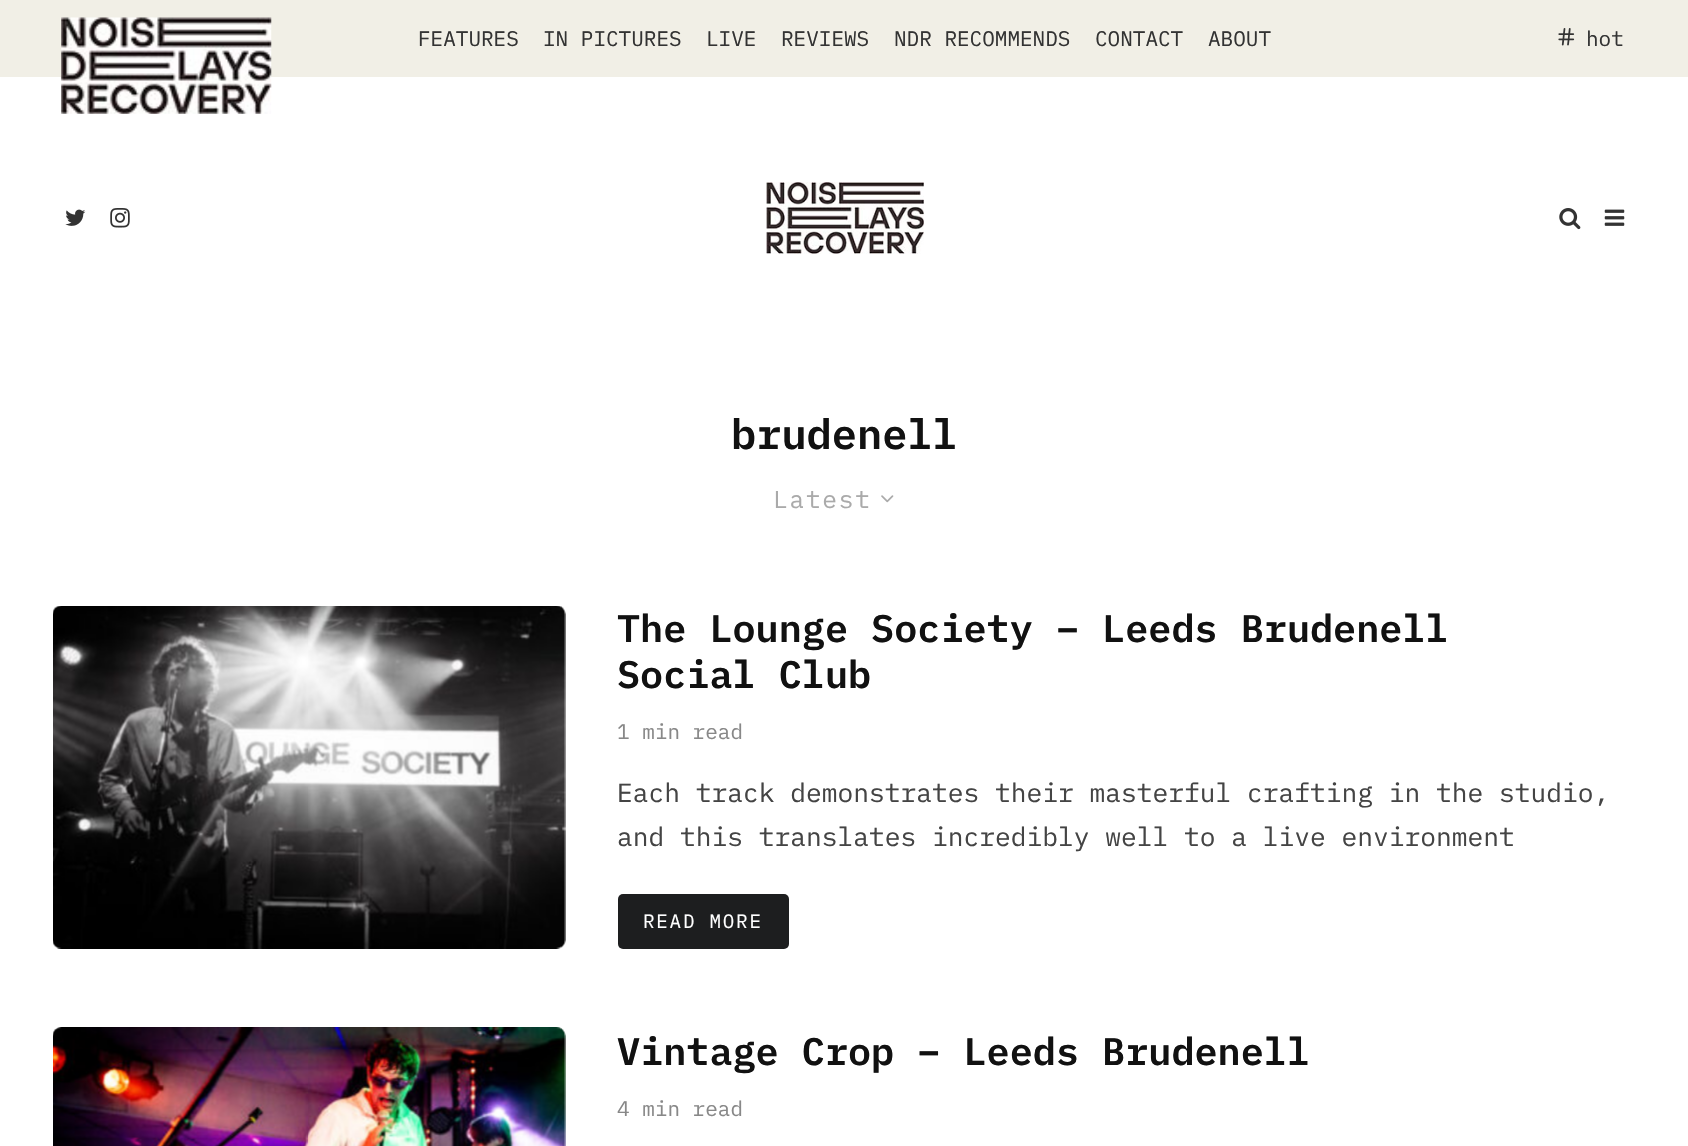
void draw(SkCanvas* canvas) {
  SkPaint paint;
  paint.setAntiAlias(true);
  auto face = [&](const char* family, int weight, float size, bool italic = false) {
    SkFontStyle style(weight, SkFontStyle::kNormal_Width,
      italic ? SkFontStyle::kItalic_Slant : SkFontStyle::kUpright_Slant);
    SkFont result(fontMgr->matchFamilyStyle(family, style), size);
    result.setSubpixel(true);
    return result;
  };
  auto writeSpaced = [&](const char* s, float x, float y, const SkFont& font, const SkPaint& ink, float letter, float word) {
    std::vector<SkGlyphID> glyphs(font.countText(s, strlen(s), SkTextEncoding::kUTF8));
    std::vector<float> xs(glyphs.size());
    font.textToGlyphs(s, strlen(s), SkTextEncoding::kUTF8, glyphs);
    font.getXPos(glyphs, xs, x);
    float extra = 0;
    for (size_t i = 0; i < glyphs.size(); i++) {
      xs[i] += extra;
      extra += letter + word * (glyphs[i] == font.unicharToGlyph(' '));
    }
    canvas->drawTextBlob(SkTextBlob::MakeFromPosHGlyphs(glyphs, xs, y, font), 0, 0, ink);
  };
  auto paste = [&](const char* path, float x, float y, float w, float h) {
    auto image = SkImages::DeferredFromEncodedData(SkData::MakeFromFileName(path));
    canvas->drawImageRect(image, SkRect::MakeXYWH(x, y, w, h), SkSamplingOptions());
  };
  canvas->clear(0xffffffff);
  paint.setColor(0xfff1efe6);
  canvas->drawRect(SkRect::MakeXYWH(0, 0, 1688, 77), paint);
  paste("img/1.png", 61, 17, 211, 97);
  paste("img/2.png", 1558, 28, 17, 18);
  paste("img/3.png", 65, 209, 21, 17);
  paste("img/4.png", 110, 208, 20, 20);
  paste("img/5.png", 766, 182, 158, 72);
  paste("img/6.png", 1559, 208, 22, 22);
  paste("img/7.png", 1604, 209, 21, 17);
  paste("img/8.png", 881, 495, 13, 8);
  paint.setColor(0xffeeeeee);
  canvas->drawRoundRect(SkRect::MakeXYWH(53, 606, 512, 343), 9, 9, paint);
  paste("img/9.png", 53, 606, 513, 343);
  paint.setColor(0xff1d1e1f);
  canvas->drawRoundRect(SkRect::MakeXYWH(618, 894, 171, 55), 5, 5, paint);
  paint.setColor(0xffeeeeee);
  canvas->drawRoundRect(SkRect::MakeXYWH(53, 1027, 512, 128), 9, 9, paint);
  paste("img/10.png", 53, 1027, 513, 119);
  auto f0 = face("IBM Plex Mono", 400, 21);
  paint.setColor(0xff333333);
  {
    const struct { const char* s; float x, y; } items[] = {
      {"FEATURES", 418, 46},
      {"IN PICTURES", 543, 46},
      {"LIVE", 706, 46},
      {"REVIEWS", 781, 46},
      {"NDR RECOMMENDS", 894, 46},
      {"CONTACT", 1095, 46},
      {"ABOUT", 1208, 46},
      {"hot", 1586, 46},
    };
    for (auto [s, x, y] : items) {
      canvas->drawString(s, x, y, f0, paint);
    }
  }
  auto f1 = face("IBM Plex Mono", 600, 42);
  paint.setColor(0xff111111);
  canvas->drawString("brudenell", 731, 449, f1, paint);
  auto f2 = face("IBM Plex Mono", 400, 24.5f);
  paint.setColor(0xffaaaaaa);
  writeSpaced("Latest", 773, 508, f2, paint, 1.75f, 0);
  auto f3 = face("IBM Plex Mono", 600, 38.5f);
  paint.setColor(0xff111111);
  canvas->drawString("The Lounge Society – Leeds Brudenell", 617, 642, f3, paint);
  canvas->drawString("Social Club", 617, 688, f3, paint);
  paint.setColor(0xff888888);
  canvas->drawString("1 min read", 617, 739, f0, paint);
  auto f4 = face("IBM Plex Mono", 400, 26.25f);
  paint.setColor(0xff444444);
  canvas->drawString("Each track demonstrates their masterful crafting in the studio,", 617, 802, f4, paint);
  canvas->drawString("and this translates incredibly well to a live environment", 617, 846, f4, paint);
  auto f5 = face("IBM Plex Mono", 400, 19.25f);
  paint.setColor(0xffffffff);
  writeSpaced("READ MORE", 643, 928, f5, paint, 1.75f, 0);
  paint.setColor(0xff111111);
  canvas->drawString("Vintage Crop – Leeds Brudenell", 617, 1065, f3, paint);
  paint.setColor(0xff888888);
  canvas->drawString("4 min read", 617, 1116, f0, paint);
}
